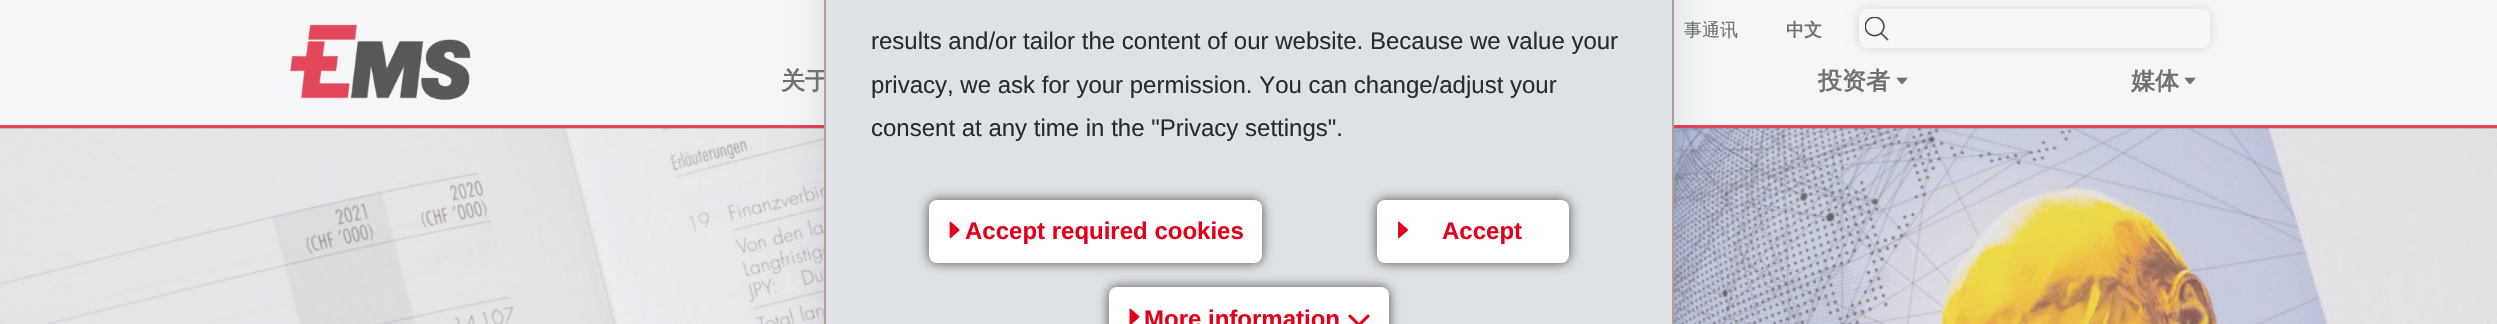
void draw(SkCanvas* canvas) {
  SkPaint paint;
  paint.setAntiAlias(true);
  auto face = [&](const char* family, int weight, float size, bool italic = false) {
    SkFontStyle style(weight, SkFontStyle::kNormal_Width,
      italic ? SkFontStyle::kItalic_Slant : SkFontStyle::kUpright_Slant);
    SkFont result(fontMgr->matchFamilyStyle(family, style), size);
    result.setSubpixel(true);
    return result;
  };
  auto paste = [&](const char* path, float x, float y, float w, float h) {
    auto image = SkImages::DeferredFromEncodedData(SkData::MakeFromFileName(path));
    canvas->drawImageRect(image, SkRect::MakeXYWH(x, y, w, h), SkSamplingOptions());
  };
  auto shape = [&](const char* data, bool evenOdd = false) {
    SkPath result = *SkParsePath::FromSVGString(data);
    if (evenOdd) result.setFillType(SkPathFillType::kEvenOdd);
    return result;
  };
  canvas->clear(0xfff5f6f8);
  paste("img/8.png", 0, 128, 2497, 196);
  paint.setColor(0x40676969);
  canvas->drawPath(shape("M0 128V129H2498V2V128Z"), paint);
  paint.setColor(0xffe14457);
  canvas->drawRect(SkRect::MakeXYWH(0, 125, 2497, 3), paint);
  paste("img/1.png", 290, 24, 181, 76);
  paint.setColor(0xffd6d7d8);
  paint.setMaskFilter(SkMaskFilter::MakeBlur(kNormal_SkBlurStyle, 6));
  canvas->drawRoundRect(SkRect::MakeXYWH(1859, 9, 351, 39), 8, 8, paint);
  paint.setMaskFilter(nullptr);
  paint.setColor(0xfff5f6f8);
  canvas->drawRoundRect(SkRect::MakeXYWH(1859, 9, 351, 39), 8, 8, paint);
  paste("img/2.png", 1865, 17, 24, 24);
  paste("img/3.png", 1896, 77, 12, 8);
  paste("img/3.png", 2184, 77, 12, 8);
  paint.setColor(0x1a000000);
  paint.setMaskFilter(SkMaskFilter::MakeBlur(kNormal_SkBlurStyle, 19));
  canvas->drawRect(SkRect::MakeXYWH(824, -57, 850, 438), paint);
  paint.setMaskFilter(nullptr);
  auto f0 = face("WenQuanYi Zen Hei", 500, 18);
  paint.setColor(0xff6f7172);
  canvas->drawString("事通讯", 1684, 36, f0, paint);
  auto f1 = face("WenQuanYi Zen Hei", 700, 18);
  canvas->drawString("中文", 1786, 36, f1, paint);
  auto f2 = face("WenQuanYi Zen Hei", 700, 24);
  {
    const struct { const char* s; float x, y; } items[] = {
      {"关于", 781, 89},
      {"投资者", 1818, 89},
      {"媒体", 2131, 89},
    };
    for (auto [s, x, y] : items) {
      canvas->drawString(s, x, y, f2, paint);
    }
  }
  paint.setColor(0xffdee2e6);
  canvas->drawRect(SkRect::MakeXYWH(825, -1, 848, 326), paint);
  paint.setStroke(true);
  paint.setStrokeWidth(2);
  paint.setColor(0xffb19f95);
  canvas->drawRect(SkRect::MakeXYWH(825, -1, 848, 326), paint);
  auto f3 = face("Liberation Sans", 400, 24);
  paint.setStroke(false);
  paint.setColor(0xff292b2c);
  {
    const struct { const char* s; float x, y; } items[] = {
      {"results and/or tailor the content of our website. Because we value your", 871, 49},
      {"privacy, we ask for your permission. You can change/adjust your", 871, 93},
      {"consent at any time in the \"Privacy settings\".", 871, 136},
    };
    for (auto [s, x, y] : items) {
      canvas->drawString(s, x, y, f3, paint);
    }
  }
  paint.setColor(0xff4e4e4e);
  paint.setMaskFilter(SkMaskFilter::MakeBlur(kNormal_SkBlurStyle, 6));
  canvas->drawRoundRect(SkRect::MakeXYWH(929, 200, 333, 63), 8, 8, paint);
  paint.setMaskFilter(nullptr);
  paint.setColor(0xffffffff);
  canvas->drawRoundRect(SkRect::MakeXYWH(929, 200, 333, 63), 8, 8, paint);
  paste("img/4.png", 949, 221, 11, 18);
  auto f4 = face("Liberation Sans", 700, 24);
  paint.setColor(0xffe2001a);
  canvas->drawString("Accept required cookies", 965, 239, f4, paint);
  paint.setColor(0xff4e4e4e);
  paint.setMaskFilter(SkMaskFilter::MakeBlur(kNormal_SkBlurStyle, 6));
  canvas->drawRoundRect(SkRect::MakeXYWH(1377, 200, 192, 63), 8, 8, paint);
  paint.setMaskFilter(nullptr);
  paint.setColor(0xffffffff);
  canvas->drawRoundRect(SkRect::MakeXYWH(1377, 200, 192, 63), 8, 8, paint);
  paste("img/5.png", 1398, 221, 10, 18);
  paint.setColor(0xffe2001a);
  canvas->drawString("Accept", 1442, 239, f4, paint);
  paint.setColor(0xff4e4e4e);
  paint.setMaskFilter(SkMaskFilter::MakeBlur(kNormal_SkBlurStyle, 6));
  canvas->drawRoundRect(SkRect::MakeXYWH(1109, 287, 280, 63), 8, 8, paint);
  paint.setMaskFilter(nullptr);
  paint.setColor(0xffffffff);
  canvas->drawRoundRect(SkRect::MakeXYWH(1109, 287, 280, 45), 8, 8, paint);
  paste("img/6.png", 1129, 308, 11, 16);
  paint.setColor(0xffe2001a);
  canvas->drawString("More information", 1144, 327, f4, paint);
  paste("img/7.png", 1348, 314, 22, 10);
}
